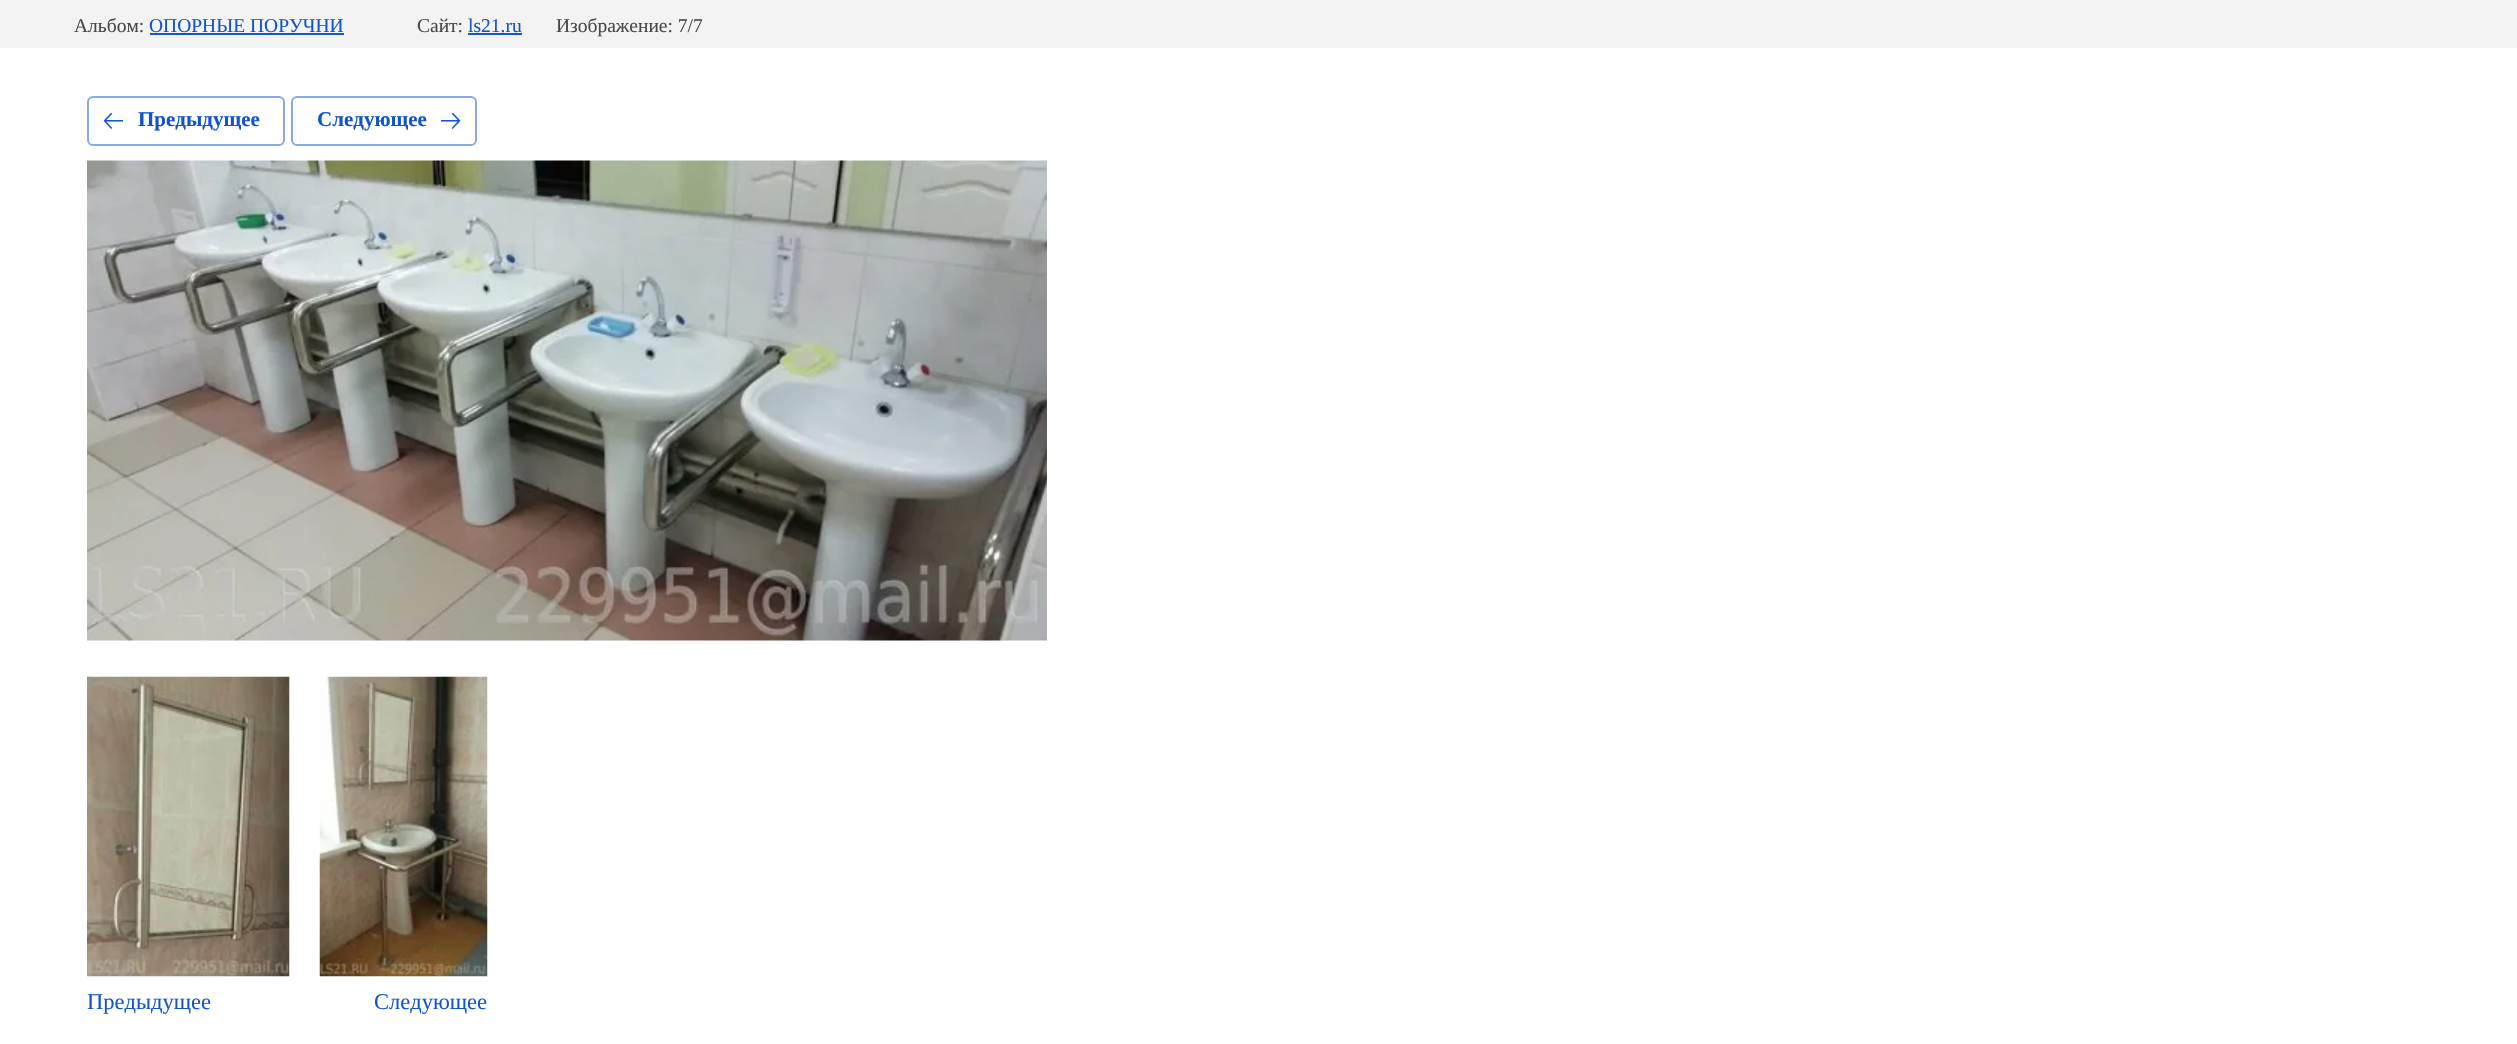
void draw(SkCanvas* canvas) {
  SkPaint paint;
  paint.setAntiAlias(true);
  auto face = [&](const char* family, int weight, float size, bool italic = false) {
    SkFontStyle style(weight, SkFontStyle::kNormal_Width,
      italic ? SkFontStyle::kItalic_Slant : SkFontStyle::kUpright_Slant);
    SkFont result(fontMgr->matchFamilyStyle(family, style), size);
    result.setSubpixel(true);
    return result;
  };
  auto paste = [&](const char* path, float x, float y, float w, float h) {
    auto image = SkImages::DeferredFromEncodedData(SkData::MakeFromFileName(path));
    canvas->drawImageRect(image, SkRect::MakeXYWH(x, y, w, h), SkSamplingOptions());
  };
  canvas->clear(0xffffffff);
  {
    const struct { float x, y, w, h; SkColor color; } items[] = {
      {0, 0, 2517, 48, 0xfff3f3f3},
      {150, 33, 194, 2, 0xff1155cc},
      {468, 33, 54, 2, 0xff1155cc},
    };
    for (auto [x, y, w, h, color] : items) {
      paint.setColor(color);
      canvas->drawRect(SkRect::MakeXYWH(x, y, w, h), paint);
    }
  }
  paint.setStroke(true);
  paint.setStrokeWidth(2);
  paint.setColor(0xff88aae6);
  canvas->drawRoundRect(SkRect::MakeXYWH(88, 97, 196, 48), 5, 5, paint);
  paste("img/1.png", 104, 113, 19, 16);
  canvas->drawRoundRect(SkRect::MakeXYWH(292, 97, 184, 48), 5, 5, paint);
  paste("img/2.png", 441, 113, 20, 16);
  paste("img/3.png", 87, 160, 960, 481);
  paste("img/4.png", 87, 676, 203, 301);
  paste("img/5.png", 319, 676, 169, 301);
  auto f0 = face("Liberation Serif", 400, 19.5f);
  paint.setStroke(false);
  paint.setColor(0xff484848);
  canvas->drawString("Альбом:", 74, 32, f0, paint);
  paint.setColor(0xff1155cc);
  canvas->drawString("ОПОРНЫЕ ПОРУЧНИ", 149, 32, f0, paint);
  paint.setColor(0xff484848);
  canvas->drawString("Сайт:", 417, 32, f0, paint);
  paint.setColor(0xff1155cc);
  canvas->drawString("ls21.ru", 468, 32, f0, paint);
  paint.setColor(0xff484848);
  canvas->drawString("Изображение: 7/7", 556, 32, f0, paint);
  auto f1 = face("Liberation Serif", 700, 21);
  paint.setColor(0xff1155cc);
  canvas->drawString("Предыдущее", 138, 126, f1, paint);
  canvas->drawString("Следующее", 317, 126, f1, paint);
  auto f2 = face("Liberation Serif", 400, 22.5f);
  canvas->drawString("Предыдущее", 87, 1009, f2, paint);
  canvas->drawString("Следующее", 374, 1009, f2, paint);
}
